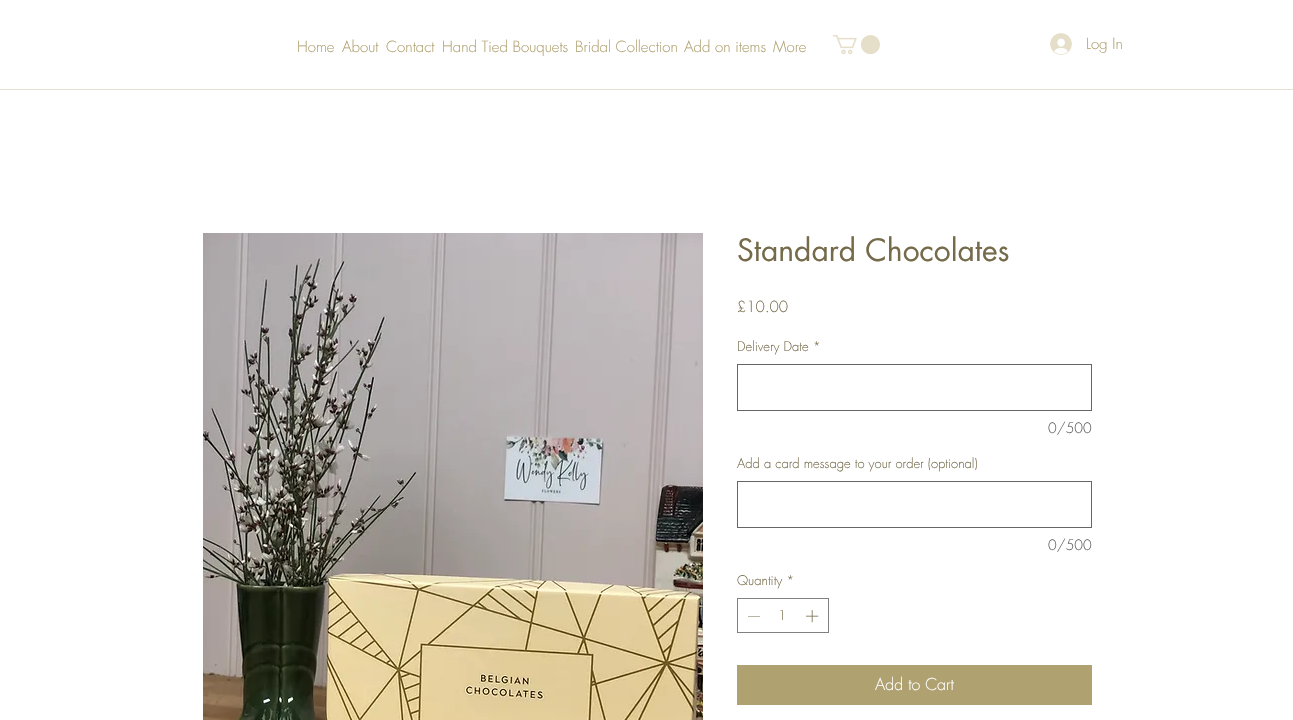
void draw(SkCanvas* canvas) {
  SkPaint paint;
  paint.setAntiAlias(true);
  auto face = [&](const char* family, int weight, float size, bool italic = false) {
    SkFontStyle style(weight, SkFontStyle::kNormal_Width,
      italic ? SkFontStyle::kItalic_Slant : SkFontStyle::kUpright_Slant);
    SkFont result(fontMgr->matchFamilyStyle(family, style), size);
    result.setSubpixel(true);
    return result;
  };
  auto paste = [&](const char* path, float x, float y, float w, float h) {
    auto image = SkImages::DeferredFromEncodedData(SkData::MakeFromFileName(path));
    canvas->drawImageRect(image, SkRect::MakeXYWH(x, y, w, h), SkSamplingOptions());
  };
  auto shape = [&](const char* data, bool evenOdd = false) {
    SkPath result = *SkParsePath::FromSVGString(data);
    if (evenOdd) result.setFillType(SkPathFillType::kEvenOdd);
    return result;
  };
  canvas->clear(0xffffffff);
  paste("img/1.png", 833, 35, 47, 20);
  paste("img/2.png", 1050, 33, 22, 22);
  paint.setColor(0xffe5e1d3);
  canvas->drawRect(SkRect::MakeXYWH(0, 89, 1293, 1), paint);
  paste("img/3.png", 203, 233, 500, 487);
  paint.setStroke(true);
  paint.setStrokeWidth(1);
  paint.setColor(0xff666666);
  canvas->drawRect(SkRect::MakeXYWH(737.5f, 364.5f, 354, 46), paint);
  canvas->drawRect(SkRect::MakeXYWH(737.5f, 481.5f, 354, 46), paint);
  paint.setColor(0xff808080);
  canvas->drawRect(SkRect::MakeXYWH(737.5f, 598.5f, 91, 34), paint);
  paint.setStroke(false);
  paint.setColor(0xff756b4b);
  canvas->drawPath(shape("M760 616V616.5H748V616Z", true), paint);
  paste("img/4.png", 806, 610, 13, 13);
  paint.setColor(0xffb0a171);
  canvas->drawRect(SkRect::MakeXYWH(737, 665, 355, 40), paint);
  auto f0 = face("futura", 300, 15);
  {
    const struct { const char* s; float x, y; } items[] = {
      {"Home", 297, 52},
      {"About", 342, 52},
      {"Contact", 386, 52},
      {"Hand Tied Bouquets", 442, 52},
      {"Bridal Collection", 575, 52},
      {"Add on items", 684, 52},
      {"More", 773, 52},
      {"Log In", 1086, 49},
    };
    for (auto [s, x, y] : items) {
      canvas->drawString(s, x, y, f0, paint);
    }
  }
  auto f1 = face("futura", 400, 30);
  paint.setColor(0xff756b4b);
  canvas->drawString("Standard Chocolates", 737, 261, f1, paint);
  canvas->drawString("£10.00", 737, 312, f0, paint);
  auto f2 = face("futura", 300, 13);
  canvas->drawString("Delivery Date *", 737, 351, f2, paint);
  auto f3 = face("futura", 300, 14);
  paint.setColor(0xff5e5d5d);
  canvas->drawString("0/500", 1048, 433, f3, paint);
  paint.setColor(0xff756b4b);
  canvas->drawString("Add a card message to your order (optional)", 737, 468, f2, paint);
  paint.setColor(0xff5e5d5d);
  canvas->drawString("0/500", 1048, 550, f3, paint);
  paint.setColor(0xff756b4b);
  canvas->drawString("Quantity *", 737, 585, f2, paint);
  canvas->drawString("1", 778, 620, f2, paint);
  auto f4 = face("futura", 300, 16);
  paint.setColor(0xffffffff);
  canvas->drawString("Add to Cart", 875, 690, f4, paint);
}
